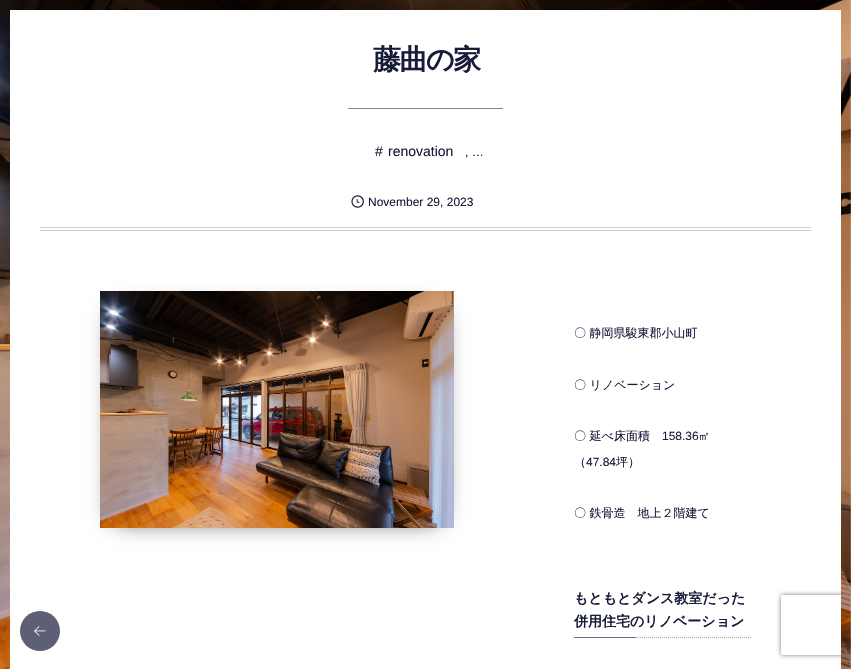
void draw(SkCanvas* canvas) {
  SkPaint paint;
  paint.setAntiAlias(true);
  auto face = [&](const char* family, int weight, float size, bool italic = false) {
    SkFontStyle style(weight, SkFontStyle::kNormal_Width,
      italic ? SkFontStyle::kItalic_Slant : SkFontStyle::kUpright_Slant);
    SkFont result(fontMgr->matchFamilyStyle(family, style), size);
    result.setSubpixel(true);
    return result;
  };
  auto writeSpaced = [&](const char* s, float x, float y, const SkFont& font, const SkPaint& ink, float letter, float word) {
    std::vector<SkGlyphID> glyphs(font.countText(s, strlen(s), SkTextEncoding::kUTF8));
    std::vector<float> xs(glyphs.size());
    font.textToGlyphs(s, strlen(s), SkTextEncoding::kUTF8, glyphs);
    font.getXPos(glyphs, xs, x);
    float extra = 0;
    for (size_t i = 0; i < glyphs.size(); i++) {
      xs[i] += extra;
      extra += letter + word * (glyphs[i] == font.unicharToGlyph(' '));
    }
    canvas->drawTextBlob(SkTextBlob::MakeFromPosHGlyphs(glyphs, xs, y, font), 0, 0, ink);
  };
  auto paste = [&](const char* path, float x, float y, float w, float h) {
    auto image = SkImages::DeferredFromEncodedData(SkData::MakeFromFileName(path));
    canvas->drawImageRect(image, SkRect::MakeXYWH(x, y, w, h), SkSamplingOptions());
  };
  auto shape = [&](const char* data, bool evenOdd = false) {
    SkPath result = *SkParsePath::FromSVGString(data);
    if (evenOdd) result.setFillType(SkPathFillType::kEvenOdd);
    return result;
  };
  canvas->clear(0xffffffff);
  paste("img/1.png", 0, 0, 851, 669);
  paint.setColor(0xffffffff);
  canvas->drawRect(SkRect::MakeXYWH(10, 10, 831, 659), paint);
  paint.setColor(0xff5d5f74);
  canvas->drawCircle(40, 631, 20, paint);
  paste("img/2.png", 34, 626, 12, 10);
  {
    const struct { float x, y, w, h; SkColor color; } items[] = {
      {348, 108, 155, 1, 0xff828494},
      {40, 227, 771, 1, 0xffd1d1d7},
      {40, 230, 771, 1, 0xffd1d1d7},
    };
    for (auto [x, y, w, h, color] : items) {
      paint.setColor(color);
      canvas->drawRect(SkRect::MakeXYWH(x, y, w, h), paint);
    }
  }
  paste("img/3.png", 351, 195, 13, 13);
  paint.setColor(0xff000000);
  paint.setMaskFilter(SkMaskFilter::MakeBlur(kNormal_SkBlurStyle, 12));
  canvas->drawRect(SkRect::MakeXYWH(116, 313, 322, 205), paint);
  paint.setMaskFilter(nullptr);
  paste("img/4.png", 100, 291, 354, 237);
  paint.setStroke(true);
  paint.setStrokeWidth(1);
  paint.setColor(0xffa3a4b0);
  paint.setPathEffect(SkDashPathEffect::Make({{1, 1}}, 0));
  canvas->drawPath(shape("M574 637.5H751"), paint);
  paint.setPathEffect(nullptr);
  paint.setStroke(false);
  paint.setColor(0x8a181b39);
  canvas->drawRect(SkRect::MakeXYWH(574, 637, 62, 1), paint);
  canvas->save();
  canvas->clipPath(shape("M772 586H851V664H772ZM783 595H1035C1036 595 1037 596 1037 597V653C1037 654 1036 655 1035 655H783C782 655 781 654 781 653V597C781 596 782 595 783 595Z", true), true);
  paint.setColor(0xff808080);
  paint.setMaskFilter(SkMaskFilter::MakeBlur(kNormal_SkBlurStyle, 2.5f));
  canvas->drawRoundRect(SkRect::MakeXYWH(781, 595, 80, 60), 2, 2, paint);
  paint.setMaskFilter(nullptr);
  canvas->restore();
  auto f0 = face("WenQuanYi Zen Hei", 700, 28);
  paint.setColor(0xff181b39);
  writeSpaced("藤曲の家", 373, 69, f0, paint, -1.5f, 0);
  auto f1 = face("Liberation Sans", 400, 14);
  canvas->drawString("#", 375, 156, f1, paint);
  canvas->drawString("renovation", 388, 156, f1, paint);
  auto f2 = face("Liberation Sans", 400, 12);
  canvas->drawString(", …", 465, 156, f2, paint);
  canvas->drawString("November 29, 2023", 368, 206, f2, paint);
  auto f3 = face("WenQuanYi Zen Hei", 500, 12);
  {
    const struct { const char* s; float x, y; } items[] = {
      {"〇 静岡県駿東郡小山町", 574, 337},
      {"〇 リノベーション", 574, 389},
      {"〇 延べ床面積", 574, 440},
    };
    for (auto [s, x, y] : items) {
      canvas->drawString(s, x, y, f3, paint);
    }
  }
  canvas->drawString("158.36", 662, 440, f2, paint);
  canvas->drawString("㎡", 698, 440, f3, paint);
  canvas->drawString("（", 574, 466, f3, paint);
  canvas->drawString("47.84", 586, 466, f2, paint);
  canvas->drawString("坪）", 616, 466, f3, paint);
  canvas->drawString("〇 鉄骨造　地上２階建て", 574, 517, f3, paint);
  auto f4 = face("WenQuanYi Zen Hei", 700, 14);
  canvas->drawString("もともとダンス教室だった", 574, 603, f4, paint);
  canvas->drawString("併用住宅のリノベーション", 574, 626, f4, paint);
}
